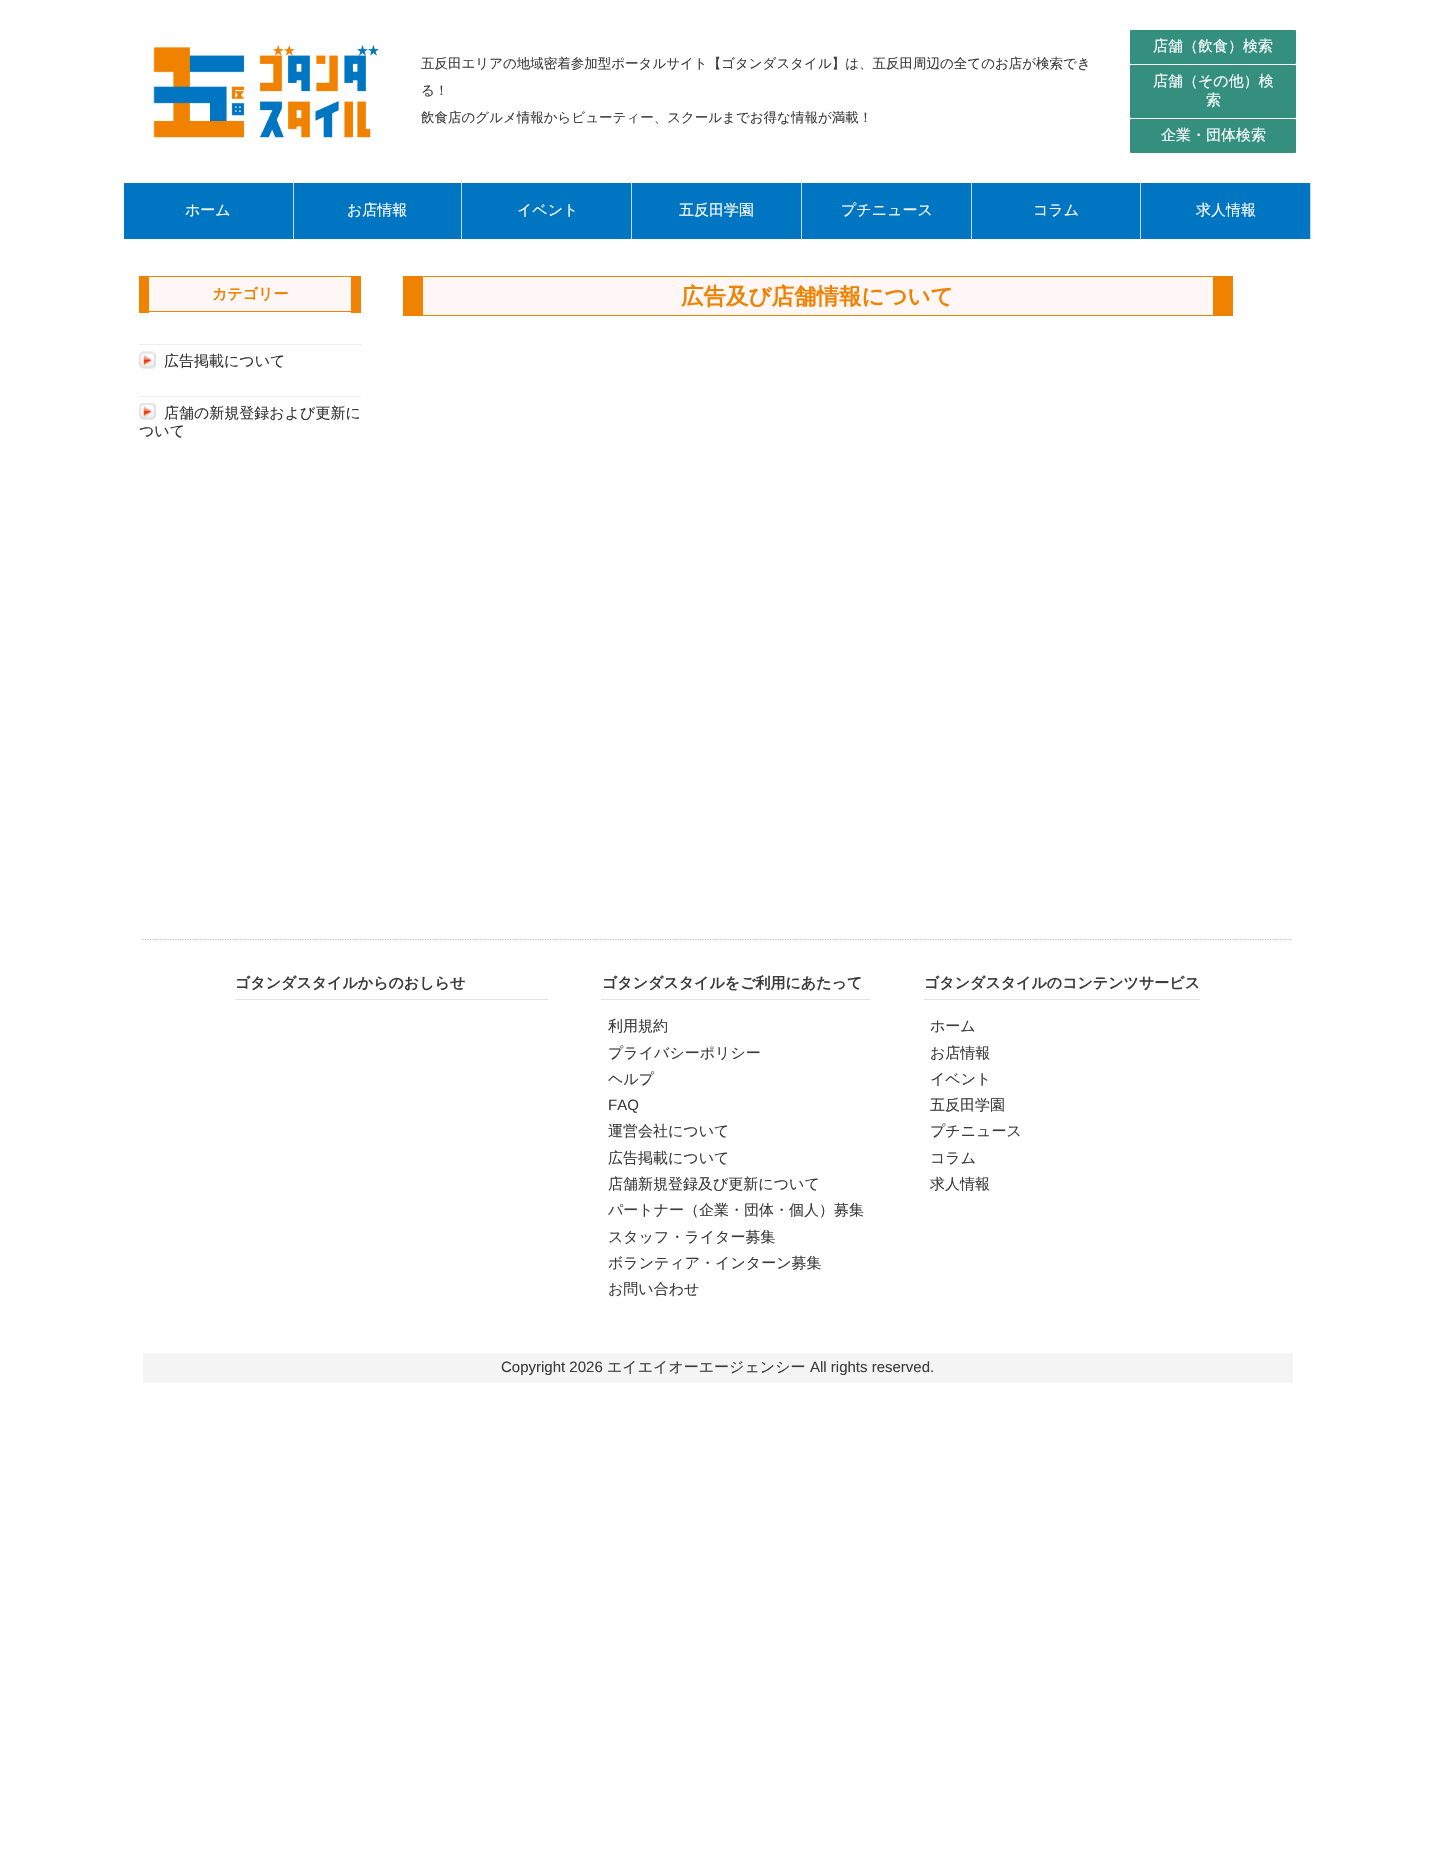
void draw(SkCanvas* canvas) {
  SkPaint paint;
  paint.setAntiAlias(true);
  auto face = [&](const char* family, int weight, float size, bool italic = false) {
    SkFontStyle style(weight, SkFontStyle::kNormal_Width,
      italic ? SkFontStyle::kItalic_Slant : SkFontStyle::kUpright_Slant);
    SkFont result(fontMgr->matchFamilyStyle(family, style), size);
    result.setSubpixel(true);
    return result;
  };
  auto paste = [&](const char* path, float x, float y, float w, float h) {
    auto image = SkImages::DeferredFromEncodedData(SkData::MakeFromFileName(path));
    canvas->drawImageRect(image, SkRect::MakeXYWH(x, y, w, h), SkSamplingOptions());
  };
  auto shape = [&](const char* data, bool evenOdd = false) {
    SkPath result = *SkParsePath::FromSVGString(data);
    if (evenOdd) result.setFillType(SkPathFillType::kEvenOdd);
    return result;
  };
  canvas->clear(0xffffffff);
  paste("img/1.png", 153, 45, 226, 93);
  paint.setColor(0xff358f7f);
  canvas->drawRoundRect(SkRect::MakeXYWH(1130, 30, 166, 34), 1, 1, paint);
  canvas->drawRoundRect(SkRect::MakeXYWH(1130, 65, 166, 53), 1, 1, paint);
  canvas->drawRoundRect(SkRect::MakeXYWH(1130, 119, 166, 34), 1, 1, paint);
  {
    const struct { float x, y, w, h; SkColor color; } items[] = {
      {124, 183, 169, 56, 0xff0075c1},
      {293, 183, 1, 56, 0xffbfddf0},
      {294, 183, 846, 56, 0xff0075c1},
      {461, 183, 1, 56, 0xffbfddf0},
      {631, 183, 1, 56, 0xffbfddf0},
      {801, 183, 1, 56, 0xffbfddf0},
      {971, 183, 1, 56, 0xffbfddf0},
      {1140, 183, 1, 56, 0xffbfddf0},
      {1141, 183, 169, 56, 0xff0075c1},
      {1310, 183, 1, 56, 0xffbfddf0},
      {149, 278, 202, 33, 0xfffff6f6},
      {149, 276, 202, 1, 0xffef8200},
      {351, 276, 10, 37, 0xffef8200},
      {149, 311, 202, 1, 0xffef8200},
      {139, 276, 10, 37, 0xffef8200},
      {139, 344, 222, 1, 0xffeeeeee},
    };
    for (auto [x, y, w, h, color] : items) {
      paint.setColor(color);
      canvas->drawRect(SkRect::MakeXYWH(x, y, w, h), paint);
    }
  }
  paste("img/2.png", 138, 351, 19, 18);
  canvas->drawRect(SkRect::MakeXYWH(139, 396, 222, 1), paint);
  paste("img/3.png", 139, 403, 18, 17);
  {
    const struct { float x, y, w, h; SkColor color; } items[] = {
      {423, 278, 790, 37, 0xfffff6f6},
      {423, 276, 790, 1, 0xffef8200},
      {1213, 276, 20, 39, 0xffef8200},
      {423, 315, 810, 1, 0xffef8200},
      {403, 276, 20, 40, 0xffef8200},
    };
    for (auto [x, y, w, h, color] : items) {
      paint.setColor(color);
      canvas->drawRect(SkRect::MakeXYWH(x, y, w, h), paint);
    }
  }
  paint.setStroke(true);
  paint.setStrokeWidth(1.2f);
  paint.setColor(0xffc0c0c0);
  paint.setPathEffect(SkDashPathEffect::Make({{1.25f, 1.25f}}, 0));
  canvas->drawPath(shape("M142.5 939.5H1292.5"), paint);
  paint.setPathEffect(nullptr);
  paint.setStroke(false);
  {
    const struct { float x, y, w, h; SkColor color; } items[] = {
      {235, 999, 313, 1, 0xffe1e1e1},
      {601, 999, 269, 1, 0xffe1e1e1},
      {924, 999, 276, 1, 0xffe1e1e1},
      {143, 1353, 1150, 30, 0xfff4f4f4},
    };
    for (auto [x, y, w, h, color] : items) {
      paint.setColor(color);
      canvas->drawRect(SkRect::MakeXYWH(x, y, w, h), paint);
    }
  }
  auto f0 = face("WenQuanYi Zen Hei", 500, 13.5f);
  paint.setColor(0xff3c3c3c);
  {
    const struct { const char* s; float x, y; } items[] = {
      {"五反田エリアの地域密着参加型ポータルサイト【ゴタンダスタイル】は、五反田周辺の全てのお店が検索でき", 421, 68},
      {"る！", 421, 95},
      {"飲食店のグルメ情報からビューティー、スクールまでお得な情報が満載！", 421, 122},
    };
    for (auto [s, x, y] : items) {
      canvas->drawString(s, x, y, f0, paint);
    }
  }
  auto f1 = face("WenQuanYi Zen Hei", 500, 15);
  paint.setColor(0xffffffff);
  {
    const struct { const char* s; float x, y; } items[] = {
      {"店舗（飲食）検索", 1153, 51},
      {"店舗（その他）検", 1153, 86},
      {"索", 1206, 105},
      {"企業・団体検索", 1161, 140},
      {"ホーム", 185, 215},
      {"お店情報", 347, 215},
      {"イベント", 517, 215},
      {"五反田学園", 679, 215},
      {"プチニュース", 841, 215},
      {"コラム", 1033, 215},
      {"求人情報", 1196, 215},
    };
    for (auto [s, x, y] : items) {
      canvas->drawString(s, x, y, f1, paint);
    }
  }
  auto f2 = face("WenQuanYi Zen Hei", 700, 15);
  paint.setColor(0xffef8200);
  canvas->drawString("カテゴリー", 212, 299, f2, paint);
  paint.setColor(0xff333333);
  {
    const struct { const char* s; float x, y; } items[] = {
      {"広告掲載について", 164, 366},
      {"店舗の新規登録および更新に", 164, 418},
      {"ついて", 139, 436},
    };
    for (auto [s, x, y] : items) {
      canvas->drawString(s, x, y, f1, paint);
    }
  }
  auto f3 = face("WenQuanYi Zen Hei", 700, 22.5f);
  paint.setColor(0xffef8200);
  canvas->drawString("広告及び店舗情報について", 681, 304, f3, paint);
  paint.setColor(0xff3c3c3c);
  canvas->drawString("ゴタンダスタイルからのおしらせ", 235, 988, f2, paint);
  canvas->drawString("ゴタンダスタイルをご利用にあたって", 602, 988, f2, paint);
  {
    const struct { const char* s; float x, y; } items[] = {
      {"利用規約", 608, 1031},
      {"プライバシーポリシー", 608, 1058},
      {"ヘルプ", 608, 1084},
    };
    for (auto [s, x, y] : items) {
      canvas->drawString(s, x, y, f1, paint);
    }
  }
  auto f4 = face("Liberation Sans", 400, 15);
  canvas->drawString("FAQ", 608, 1110, f4, paint);
  {
    const struct { const char* s; float x, y; } items[] = {
      {"運営会社について", 608, 1136},
      {"広告掲載について", 608, 1163},
      {"店舗新規登録及び更新について", 608, 1189},
      {"パートナー（企業・団体・個人）募集", 608, 1215},
      {"スタッフ・ライター募集", 608, 1242},
      {"ボランティア・インターン募集", 608, 1268},
      {"お問い合わせ", 608, 1294},
    };
    for (auto [s, x, y] : items) {
      canvas->drawString(s, x, y, f1, paint);
    }
  }
  canvas->drawString("ゴタンダスタイルのコンテンツサービス", 924, 988, f2, paint);
  {
    const struct { const char* s; float x, y; } items[] = {
      {"ホーム", 930, 1031},
      {"お店情報", 930, 1058},
      {"イベント", 930, 1084},
      {"五反田学園", 930, 1110},
      {"プチニュース", 930, 1136},
      {"コラム", 930, 1163},
      {"求人情報", 930, 1189},
    };
    for (auto [s, x, y] : items) {
      canvas->drawString(s, x, y, f1, paint);
    }
  }
  canvas->drawString("Copyright 2026", 501, 1372, f4, paint);
  canvas->drawString("エイエイオーエージェンシー", 607, 1372, f1, paint);
  canvas->drawString("All rights reserved.", 810, 1372, f4, paint);
}
